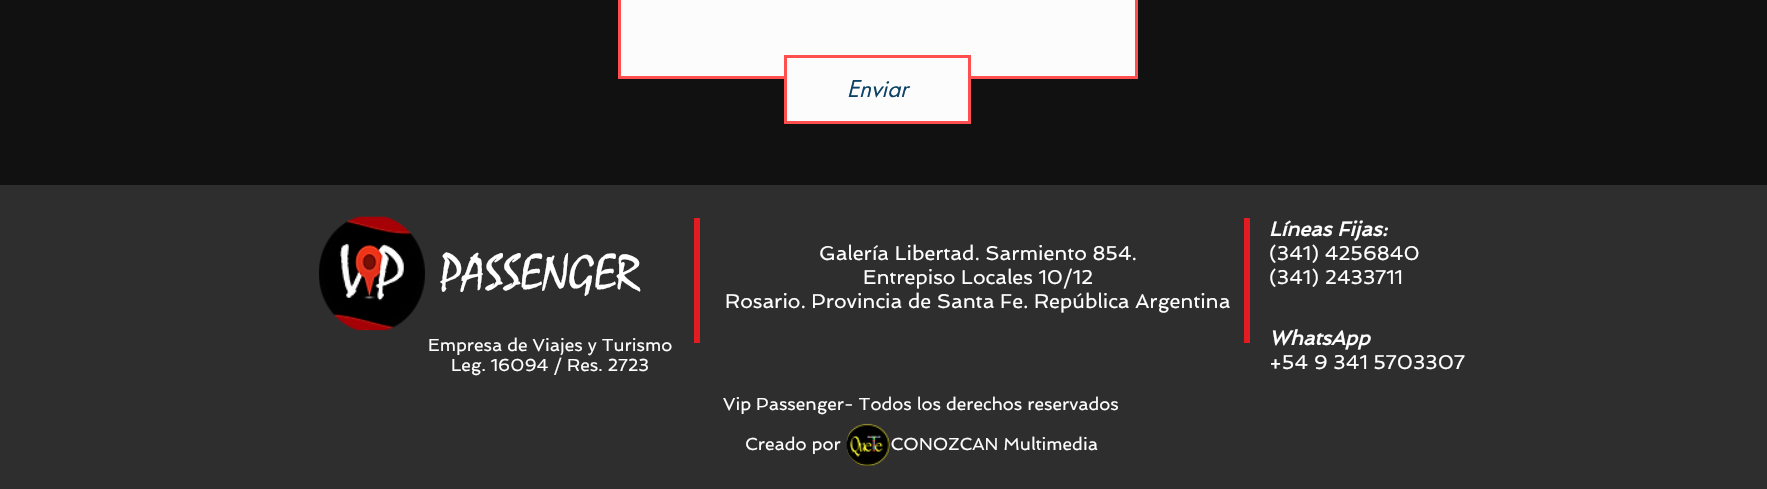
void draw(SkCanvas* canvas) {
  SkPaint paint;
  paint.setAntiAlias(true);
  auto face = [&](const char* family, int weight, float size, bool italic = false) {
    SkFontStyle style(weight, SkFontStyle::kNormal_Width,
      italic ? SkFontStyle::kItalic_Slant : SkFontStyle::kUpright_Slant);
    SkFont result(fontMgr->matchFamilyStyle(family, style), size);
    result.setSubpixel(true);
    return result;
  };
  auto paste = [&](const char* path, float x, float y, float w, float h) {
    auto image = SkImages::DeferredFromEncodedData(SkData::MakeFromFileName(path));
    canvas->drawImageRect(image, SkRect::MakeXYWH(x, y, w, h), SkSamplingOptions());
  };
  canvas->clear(0xff121111);
  paint.setColor(0xfffcfcfc);
  canvas->drawRect(SkRect::MakeXYWH(619.5f, -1.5f, 517, 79), paint);
  paint.setStroke(true);
  paint.setStrokeWidth(3);
  paint.setColor(0xffff4f4f);
  canvas->drawRect(SkRect::MakeXYWH(619.5f, -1.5f, 517, 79), paint);
  paint.setStroke(false);
  paint.setColor(0xfffcfcfc);
  canvas->drawRect(SkRect::MakeXYWH(787, 76, 181, 45), paint);
  paint.setStroke(true);
  paint.setColor(0xffff4f4f);
  canvas->drawRect(SkRect::MakeXYWH(785.5f, 56.5f, 184, 66), paint);
  paint.setStroke(false);
  paint.setColor(0xff2f2e2e);
  canvas->drawRect(SkRect::MakeXYWH(0, 185, 1767, 304), paint);
  paste("img/1.png", 319, 216, 106, 115);
  paint.setColor(0xffe21c21);
  canvas->drawRect(SkRect::MakeXYWH(694, 218, 6, 125), paint);
  canvas->drawRect(SkRect::MakeXYWH(1244, 218, 6, 125), paint);
  auto f0 = face("futura", 400, 22.5f, true);
  paint.setColor(0xff0c4266);
  canvas->drawString("Enviar", 847, 97, f0, paint);
  auto f1 = face("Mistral", 400, 51);
  paint.setColor(0xffffffff);
  canvas->drawString("PASSENGER", 440, 289, f1, paint);
  auto f2 = face("Spinnaker", 400, 20);
  {
    const struct { const char* s; float x, y; } items[] = {
      {"Galería Libertad. Sarmiento 854.", 819, 260},
      {"Entrepiso Locales 10/12", 863, 284},
      {"Rosario. Provincia de Santa Fe. República Argentina", 725, 308},
    };
    for (auto [s, x, y] : items) {
      canvas->drawString(s, x, y, f2, paint);
    }
  }
  auto f3 = face("Spinnaker", 700, 20, true);
  canvas->drawString("Líneas Fijas:", 1269, 236, f3, paint);
  canvas->drawString("(341) 4256840", 1269, 260, f2, paint);
  canvas->drawString("(341) 2433711", 1269, 284, f2, paint);
  auto f4 = face("Spinnaker", 400, 17.5f);
  canvas->drawString("Empresa de Viajes y Turismo", 428, 351, f4, paint);
  canvas->drawString("Leg. 16094 / Res. 2723", 451, 371, f4, paint);
  canvas->drawString("WhatsApp", 1269, 345, f3, paint);
  canvas->drawString("+54 9 341 5703307", 1269, 369, f2, paint);
  canvas->drawString("Vip Passenger- Todos los derechos reservados", 723, 410, f4, paint);
  canvas->drawString("Creado por          CONOZCAN Multimedia", 745, 450, f4, paint);
  paste("img/2.png", 846, 423, 45, 43);
}
